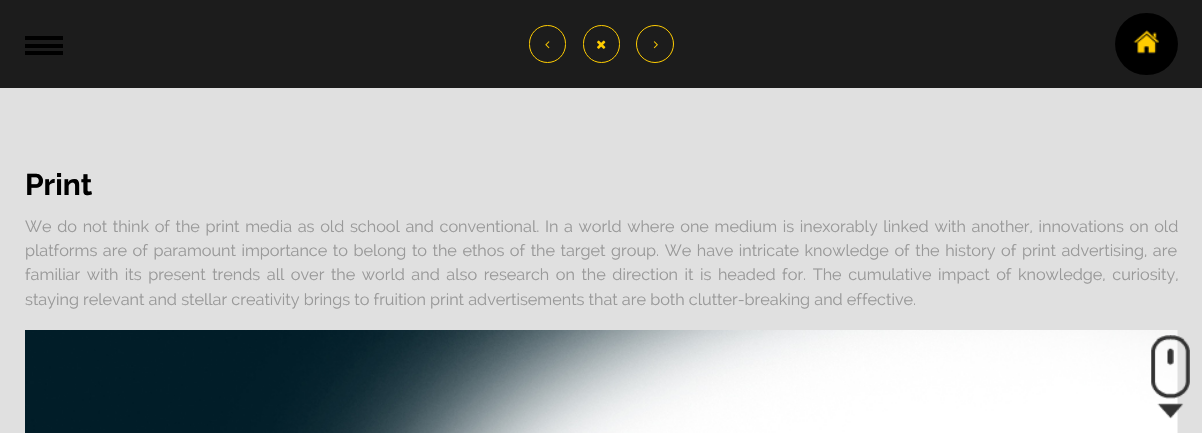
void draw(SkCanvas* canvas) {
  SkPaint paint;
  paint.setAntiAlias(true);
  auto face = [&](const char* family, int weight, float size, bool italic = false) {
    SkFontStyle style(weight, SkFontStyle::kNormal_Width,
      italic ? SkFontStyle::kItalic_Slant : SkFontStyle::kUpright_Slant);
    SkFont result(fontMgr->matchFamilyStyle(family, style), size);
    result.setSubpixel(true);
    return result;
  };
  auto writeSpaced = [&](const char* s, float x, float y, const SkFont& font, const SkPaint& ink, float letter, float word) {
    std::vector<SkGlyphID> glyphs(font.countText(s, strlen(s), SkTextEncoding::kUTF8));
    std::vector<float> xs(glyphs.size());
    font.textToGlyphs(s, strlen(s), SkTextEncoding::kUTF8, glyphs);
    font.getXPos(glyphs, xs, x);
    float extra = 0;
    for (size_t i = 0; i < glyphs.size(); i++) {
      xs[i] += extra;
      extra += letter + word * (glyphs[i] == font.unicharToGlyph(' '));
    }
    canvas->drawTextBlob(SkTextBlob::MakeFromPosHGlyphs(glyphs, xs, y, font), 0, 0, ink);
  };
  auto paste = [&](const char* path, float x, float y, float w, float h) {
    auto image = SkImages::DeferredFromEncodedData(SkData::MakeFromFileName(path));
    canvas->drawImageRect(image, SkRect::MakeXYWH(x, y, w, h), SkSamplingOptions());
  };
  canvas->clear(0xff1c1c1c);
  {
    const struct { float x, y, w, h; SkColor color; } items[] = {
      {25, 44, 38, 4, 0xff000000},
      {25, 36, 38, 4, 0xff000000},
      {25, 51, 38, 4, 0xff000000},
    };
    for (auto [x, y, w, h, color] : items) {
      paint.setColor(color);
      canvas->drawRect(SkRect::MakeXYWH(x, y, w, h), paint);
    }
  }
  canvas->drawRoundRect(SkRect::MakeXYWH(1115, 13, 63, 62), 31, 31, paint);
  paste("img/1.png", 1133, 30, 26, 24);
  paint.setColor(0xffe0e0e0);
  canvas->drawRect(SkRect::MakeXYWH(0, 88, 1202, 345), paint);
  paint.setStroke(true);
  paint.setStrokeWidth(1);
  paint.setColor(0xffffcc00);
  canvas->drawRoundRect(SkRect::MakeXYWH(529.5f, 25.5f, 36, 37), 18, 18, paint);
  paste("img/2.png", 545, 41, 5, 8);
  canvas->drawRoundRect(SkRect::MakeXYWH(583.5f, 25.5f, 36, 37), 18, 18, paint);
  paste("img/3.png", 597, 40, 9, 9);
  canvas->drawCircle(655, 44, 18.5f, paint);
  paste("img/4.png", 653, 41, 5, 8);
  paste("img/5.png", 25, 330, 1153, 103);
  paste("img/6.png", 1151, 335, 39, 84);
  auto f0 = face("Raleway", 700, 30);
  paint.setStroke(false);
  paint.setColor(0xff000000);
  canvas->drawString("Print", 25, 195, f0, paint);
  auto f1 = face("Raleway", 400, 16.25f);
  paint.setColor(0xff999999);
  writeSpaced("We do not think of the print media as old school and conventional. In a world where one medium is inexorably linked with another, innovations on old", 25, 232, f1, paint, 0, 1.5f);
  writeSpaced("platforms are of paramount importance to belong to the ethos of the target group. We have intricate knowledge of the history of print advertising, are", 25, 256, f1, paint, 0, 1.4f);
  writeSpaced("familiar with its present trends all over the world and also research on the direction it is headed for. The cumulative impact of knowledge, curiosity,", 25, 280, f1, paint, 0, 2.4f);
  canvas->drawString("staying relevant and stellar creativity brings to fruition print advertisements that are both clutter-breaking and effective.", 25, 305, f1, paint);
}
